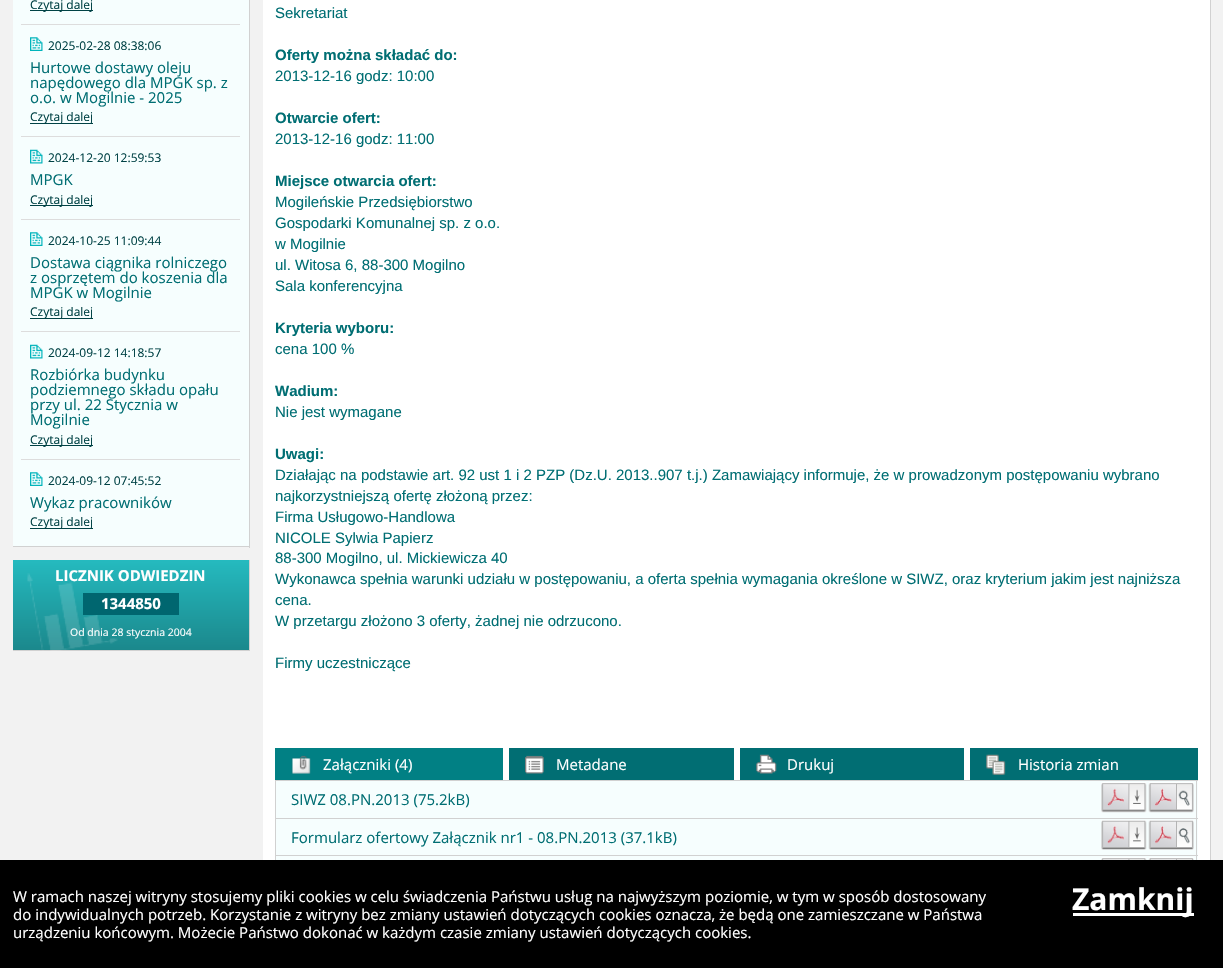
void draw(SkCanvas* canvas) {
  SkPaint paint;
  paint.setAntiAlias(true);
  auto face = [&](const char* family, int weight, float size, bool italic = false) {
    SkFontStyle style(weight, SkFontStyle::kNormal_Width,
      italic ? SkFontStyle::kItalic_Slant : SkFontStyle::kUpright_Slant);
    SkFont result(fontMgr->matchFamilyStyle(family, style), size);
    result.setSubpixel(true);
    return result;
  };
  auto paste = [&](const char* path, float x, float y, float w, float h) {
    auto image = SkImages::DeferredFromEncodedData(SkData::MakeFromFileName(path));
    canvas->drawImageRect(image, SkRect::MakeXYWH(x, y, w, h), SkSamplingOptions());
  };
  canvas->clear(0xfff2f2f2);
  {
    const struct { float x, y, w, h; SkColor color; } items[] = {
      {13, 0, 236, 546, 0xfff6fefe},
      {249, 0, 1, 548, 0xffd1d1d1},
      {13, 546, 237, 1, 0xffd1d1d1},
      {30, 10, 63, 1, 0xff004245},
      {21, 24, 219, 1, 0xffdddddd},
    };
    for (auto [x, y, w, h, color] : items) {
      paint.setColor(color);
      canvas->drawRect(SkRect::MakeXYWH(x, y, w, h), paint);
    }
  }
  paste("img/1.png", 30, 37, 13, 14);
  paint.setColor(0xff004245);
  canvas->drawRect(SkRect::MakeXYWH(30, 123, 63, 1), paint);
  paint.setColor(0xffdddddd);
  canvas->drawRect(SkRect::MakeXYWH(21, 136, 219, 1), paint);
  paste("img/2.png", 30, 149, 13, 15);
  paint.setColor(0xff004245);
  canvas->drawRect(SkRect::MakeXYWH(30, 205, 63, 1), paint);
  paint.setColor(0xffdddddd);
  canvas->drawRect(SkRect::MakeXYWH(21, 219, 219, 1), paint);
  paste("img/1.png", 30, 232, 13, 14);
  paint.setColor(0xff004245);
  canvas->drawRect(SkRect::MakeXYWH(30, 318, 63, 1), paint);
  paint.setColor(0xffdddddd);
  canvas->drawRect(SkRect::MakeXYWH(21, 331, 219, 1), paint);
  paste("img/2.png", 30, 344, 13, 15);
  paint.setColor(0xff004245);
  canvas->drawRect(SkRect::MakeXYWH(30, 445, 63, 1), paint);
  paint.setColor(0xffdddddd);
  canvas->drawRect(SkRect::MakeXYWH(21, 459, 219, 1), paint);
  paste("img/1.png", 30, 472, 13, 14);
  paint.setColor(0xff004245);
  canvas->drawRect(SkRect::MakeXYWH(30, 528, 63, 1), paint);
  {
    const SkColor colors[] = {0xff25babf, 0xff1b888c};
    const float stops[] = {0, 1};
    const SkPoint ends[] = {{131, 560}, {131, 650}};
    paint.setShader(SkGradientShader::MakeLinear(ends, colors, stops, 2, SkTileMode::kClamp));
    paint.setAlpha(255);
  }
  canvas->drawRect(SkRect::MakeXYWH(13, 560, 236, 90), paint);
  paint.setShader(nullptr);
  paint.setColor(0xffd1d1d1);
  canvas->drawRect(SkRect::MakeXYWH(249, 560, 1, 91), paint);
  canvas->drawRect(SkRect::MakeXYWH(13, 650, 237, 1), paint);
  paste("img/3.png", 27, 573, 91, 78);
  {
    const struct { float x, y, w, h; SkColor color; } items[] = {
      {83, 593, 96, 22, 0xff00666f},
      {263, 0, 947, 860, 0xffffffff},
      {1210, 0, 1, 860, 0xffd1d1d1},
      {275, 748, 228, 32, 0xff018084},
    };
    for (auto [x, y, w, h, color] : items) {
      paint.setColor(color);
      canvas->drawRect(SkRect::MakeXYWH(x, y, w, h), paint);
    }
  }
  paste("img/4.png", 291, 755, 20, 19);
  paint.setColor(0xff016e73);
  canvas->drawRect(SkRect::MakeXYWH(509, 748, 225, 32), paint);
  paste("img/5.png", 525, 755, 19, 19);
  canvas->drawRect(SkRect::MakeXYWH(740, 748, 224, 32), paint);
  paste("img/6.png", 756, 754, 21, 20);
  canvas->drawRect(SkRect::MakeXYWH(970, 748, 228, 32), paint);
  paste("img/7.png", 986, 754, 20, 21);
  {
    const struct { float x, y, w, h; SkColor color; } items[] = {
      {275, 780, 923, 1, 0xffd1d1d1},
      {276, 781, 922, 37, 0xfff6fefe},
      {275, 818, 923, 1, 0xffd1d1d1},
      {276, 819, 922, 36, 0xfff6fefe},
      {275, 855, 923, 1, 0xffd1d1d1},
      {276, 856, 922, 4, 0xfff6fefe},
      {1196, 855, 1, 5, 0xffd1d1d1},
      {1196, 818, 1, 38, 0xffd1d1d1},
      {1196, 780, 1, 39, 0xffd1d1d1},
      {275, 855, 1, 5, 0xffd1d1d1},
      {275, 818, 1, 38, 0xffd1d1d1},
      {275, 780, 1, 39, 0xffd1d1d1},
    };
    for (auto [x, y, w, h, color] : items) {
      paint.setColor(color);
      canvas->drawRect(SkRect::MakeXYWH(x, y, w, h), paint);
    }
  }
  paste("img/8.png", 1101, 782, 46, 31);
  paste("img/9.png", 1148, 782, 46, 31);
  paste("img/10.png", 1101, 820, 46, 30);
  paste("img/11.png", 1148, 820, 46, 30);
  paste("img/12.png", 1101, 857, 46, 3);
  paste("img/13.png", 1148, 857, 46, 3);
  paint.setColor(0xff000000);
  canvas->drawRect(SkRect::MakeXYWH(0, 860, 1223, 108), paint);
  paint.setColor(0xffffffff);
  canvas->drawRect(SkRect::MakeXYWH(1073, 913, 121, 3), paint);
  auto f0 = face("Open Sans", 400, 12);
  paint.setColor(0xff004245);
  canvas->drawString("Czytaj dalej", 30, 9, f0, paint);
  canvas->drawString("2025-02-28 08:38:06", 48, 50, f0, paint);
  auto f1 = face("Open Sans", 400, 15);
  paint.setColor(0xff006e73);
  {
    const struct { const char* s; float x, y; } items[] = {
      {"Hurtowe dostawy oleju", 30, 73},
      {"napędowego dla MPGK sp. z", 30, 88},
      {"o.o. w Mogilnie - 2025", 30, 103},
    };
    for (auto [s, x, y] : items) {
      canvas->drawString(s, x, y, f1, paint);
    }
  }
  paint.setColor(0xff004245);
  canvas->drawString("Czytaj dalej", 30, 121, f0, paint);
  canvas->drawString("2024-12-20 12:59:53", 48, 162, f0, paint);
  paint.setColor(0xff006e73);
  canvas->drawString("MPGK", 30, 185, f1, paint);
  paint.setColor(0xff004245);
  canvas->drawString("Czytaj dalej", 30, 204, f0, paint);
  canvas->drawString("2024-10-25 11:09:44", 48, 245, f0, paint);
  paint.setColor(0xff006e73);
  {
    const struct { const char* s; float x, y; } items[] = {
      {"Dostawa ciągnika rolniczego", 30, 268},
      {"z osprzętem do koszenia dla", 30, 283},
      {"MPGK w Mogilnie", 30, 298},
    };
    for (auto [s, x, y] : items) {
      canvas->drawString(s, x, y, f1, paint);
    }
  }
  paint.setColor(0xff004245);
  canvas->drawString("Czytaj dalej", 30, 316, f0, paint);
  canvas->drawString("2024-09-12 14:18:57", 48, 357, f0, paint);
  paint.setColor(0xff006e73);
  {
    const struct { const char* s; float x, y; } items[] = {
      {"Rozbiórka budynku", 30, 380},
      {"podziemnego składu opału", 30, 395},
      {"przy ul. 22 Stycznia w", 30, 410},
      {"Mogilnie", 30, 425},
    };
    for (auto [s, x, y] : items) {
      canvas->drawString(s, x, y, f1, paint);
    }
  }
  paint.setColor(0xff004245);
  canvas->drawString("Czytaj dalej", 30, 444, f0, paint);
  canvas->drawString("2024-09-12 07:45:52", 48, 485, f0, paint);
  paint.setColor(0xff006e73);
  canvas->drawString("Wykaz pracowników", 30, 508, f1, paint);
  paint.setColor(0xff004245);
  canvas->drawString("Czytaj dalej", 30, 526, f0, paint);
  auto f2 = face("Open Sans", 700, 15);
  paint.setColor(0xffffffff);
  canvas->drawString("LICZNIK ODWIEDZIN", 55, 581, f2, paint);
  canvas->drawString("1344850", 101, 609, f2, paint);
  auto f3 = face("Open Sans", 400, 10.5f);
  canvas->drawString("Od dnia 28 stycznia 2004", 70, 636, f3, paint);
  auto f4 = face("Liberation Sans", 400, 15);
  paint.setColor(0xff006e73);
  canvas->drawString("Sekretariat", 275, 18, f4, paint);
  auto f5 = face("Liberation Sans", 700, 15);
  canvas->drawString("Oferty można składać do:", 275, 60, f5, paint);
  canvas->drawString("2013-12-16 godz: 10:00", 275, 81, f4, paint);
  canvas->drawString("Otwarcie ofert:", 275, 123, f5, paint);
  canvas->drawString("2013-12-16 godz: 11:00", 275, 144, f4, paint);
  canvas->drawString("Miejsce otwarcia ofert:", 275, 186, f5, paint);
  {
    const struct { const char* s; float x, y; } items[] = {
      {"Mogileńskie Przedsiębiorstwo", 275, 207},
      {"Gospodarki Komunalnej sp. z o.o.", 275, 228},
      {"w Mogilnie", 275, 249},
      {"ul. Witosa 6, 88-300 Mogilno", 275, 270},
      {"Sala konferencyjna", 275, 291},
    };
    for (auto [s, x, y] : items) {
      canvas->drawString(s, x, y, f4, paint);
    }
  }
  canvas->drawString("Kryteria wyboru:", 275, 333, f5, paint);
  canvas->drawString("cena 100 %", 275, 354, f4, paint);
  canvas->drawString("Wadium:", 275, 396, f5, paint);
  canvas->drawString("Nie jest wymagane", 275, 417, f4, paint);
  canvas->drawString("Uwagi:", 275, 459, f5, paint);
  {
    const struct { const char* s; float x, y; } items[] = {
      {"Działając na podstawie art. 92 ust 1 i 2 PZP (Dz.U. 2013..907 t.j.) Zamawiający informuje, że w prowadzonym postępowaniu wybrano", 275, 480},
      {"najkorzystniejszą ofertę złożoną przez:", 275, 501},
      {"Firma Usługowo-Handlowa", 275, 522},
      {"NICOLE Sylwia Papierz", 275, 543},
      {"88-300 Mogilno, ul. Mickiewicza 40", 275, 563},
      {"Wykonawca spełnia warunki udziału w postępowaniu, a oferta spełnia wymagania określone w SIWZ, oraz kryterium jakim jest najniższa", 275, 584},
      {"cena.", 275, 605},
      {"W przetargu złożono 3 oferty, żadnej nie odrzucono.", 275, 626},
      {"Firmy uczestniczące", 275, 668},
    };
    for (auto [s, x, y] : items) {
      canvas->drawString(s, x, y, f4, paint);
    }
  }
  paint.setColor(0xffffffff);
  {
    const struct { const char* s; float x, y; } items[] = {
      {"Załączniki (4)", 323, 770},
      {"Metadane", 556, 770},
      {"Drukuj", 787, 770},
      {"Historia zmian", 1018, 770},
    };
    for (auto [s, x, y] : items) {
      canvas->drawString(s, x, y, f1, paint);
    }
  }
  paint.setColor(0xff006e73);
  canvas->drawString("SIWZ 08.PN.2013 (75.2kB)", 291, 805, f1, paint);
  canvas->drawString("Formularz ofertowy Załącznik nr1 - 08.PN.2013 (37.1kB)", 291, 843, f1, paint);
  paint.setColor(0xffffffff);
  {
    const struct { const char* s; float x, y; } items[] = {
      {"W ramach naszej witryny stosujemy pliki cookies w celu świadczenia Państwu usług na najwyższym poziomie, w tym w sposób dostosowany", 13, 902},
      {"do indywidualnych potrzeb. Korzystanie z witryny bez zmiany ustawień dotyczących cookies oznacza, że będą one zamieszczane w Państwa", 13, 920},
      {"urządzeniu końcowym. Możecie Państwo dokonać w każdym czasie zmiany ustawień dotyczących cookies.", 13, 938},
    };
    for (auto [s, x, y] : items) {
      canvas->drawString(s, x, y, f1, paint);
    }
  }
  auto f6 = face("Open Sans", 700, 30);
  canvas->drawString("Zamknij", 1072, 910, f6, paint);
}
